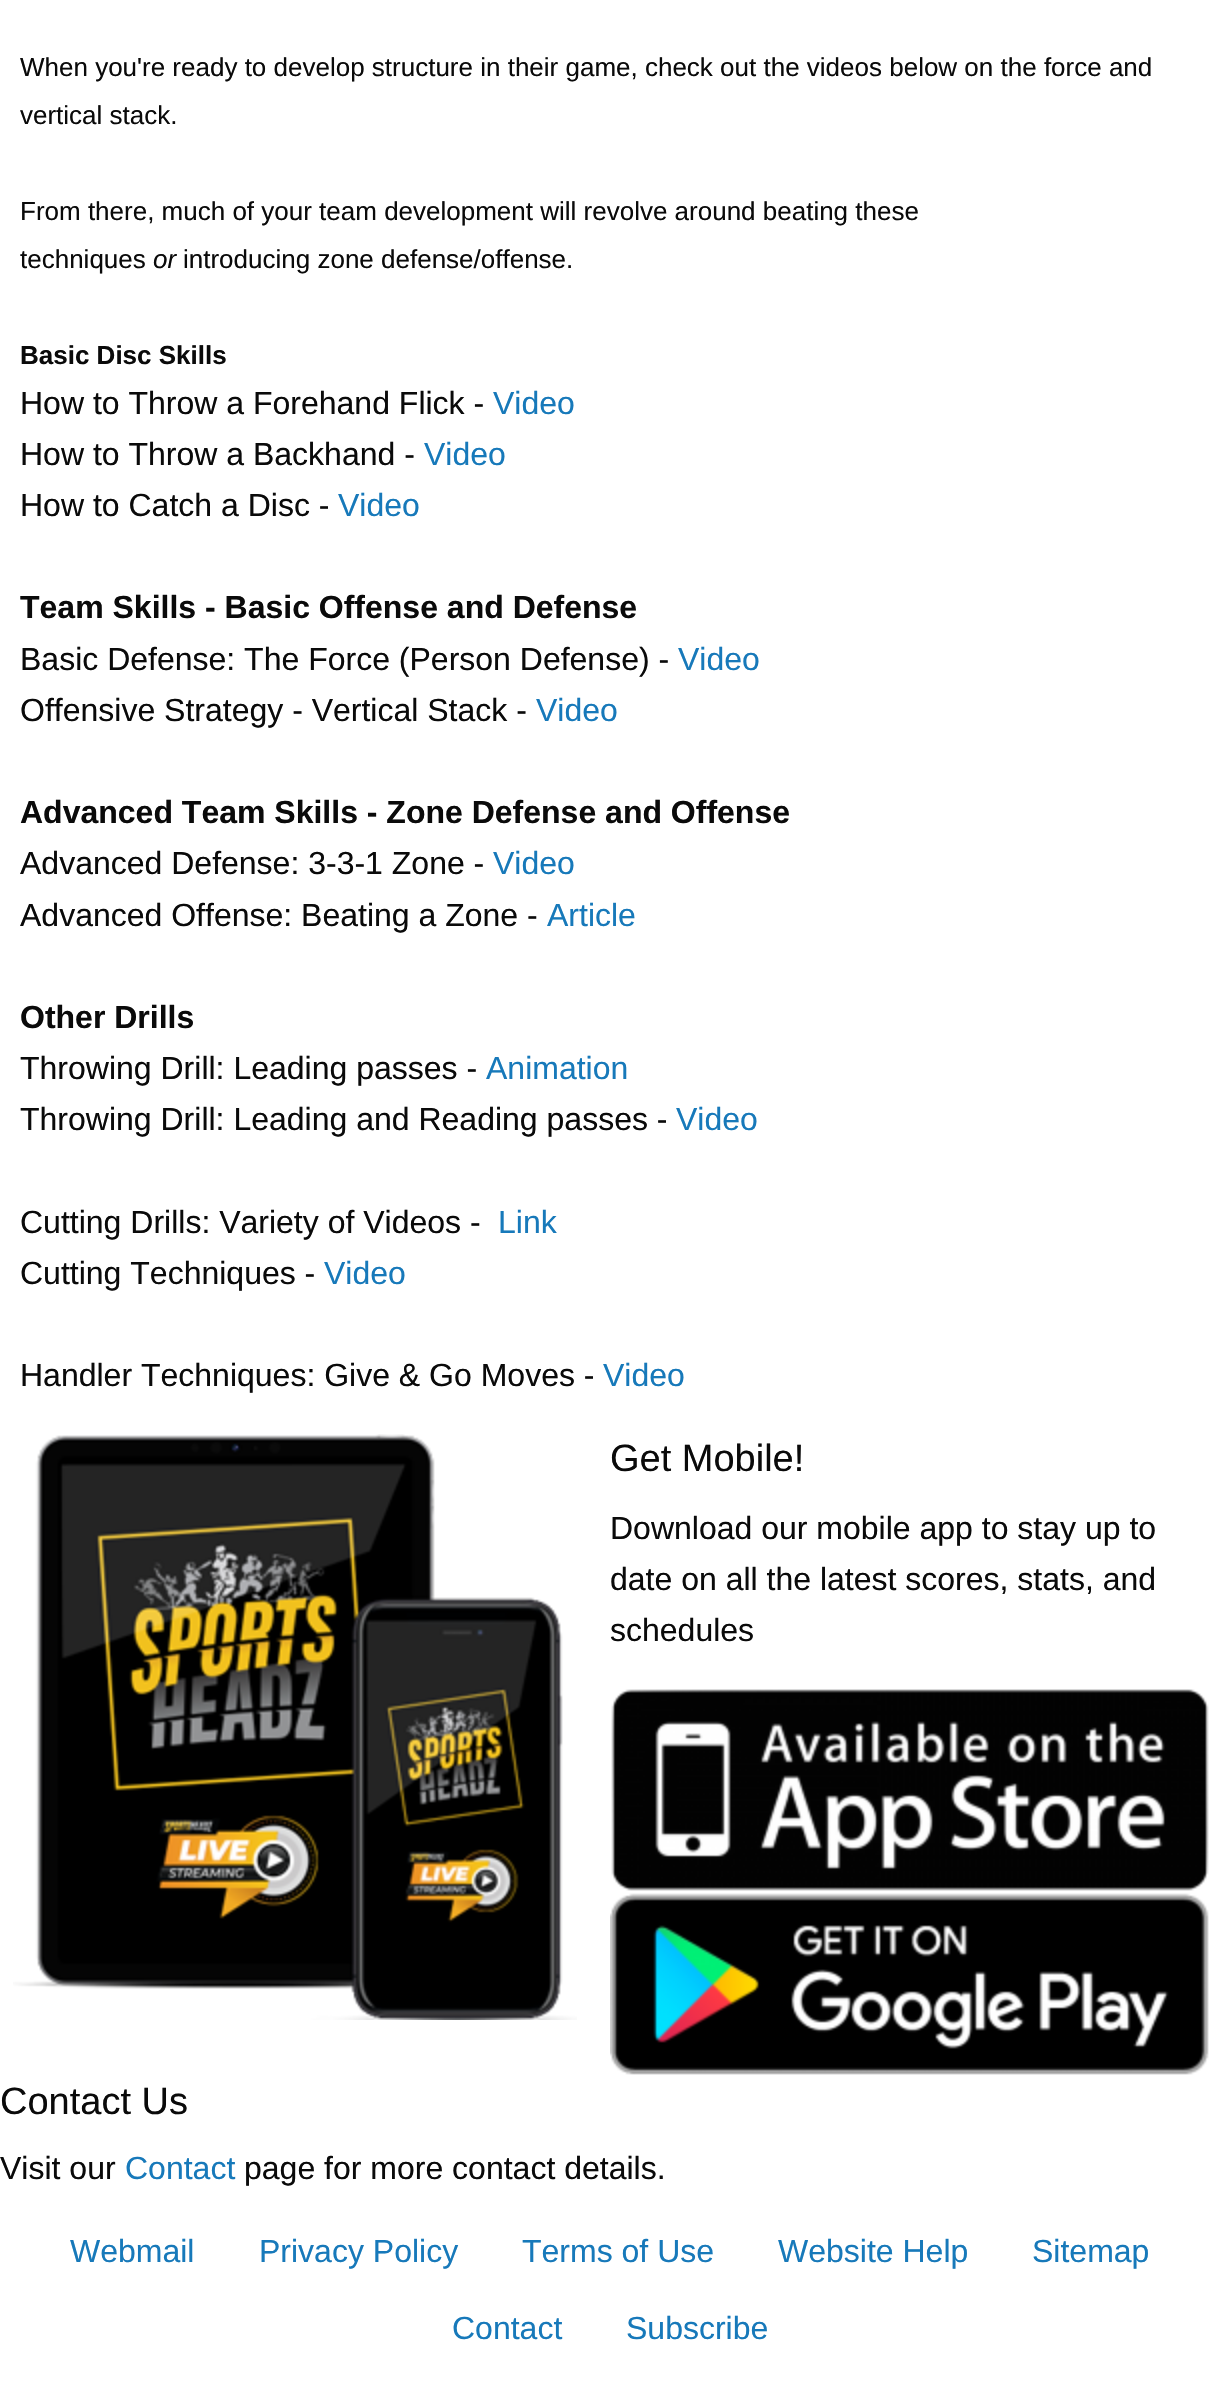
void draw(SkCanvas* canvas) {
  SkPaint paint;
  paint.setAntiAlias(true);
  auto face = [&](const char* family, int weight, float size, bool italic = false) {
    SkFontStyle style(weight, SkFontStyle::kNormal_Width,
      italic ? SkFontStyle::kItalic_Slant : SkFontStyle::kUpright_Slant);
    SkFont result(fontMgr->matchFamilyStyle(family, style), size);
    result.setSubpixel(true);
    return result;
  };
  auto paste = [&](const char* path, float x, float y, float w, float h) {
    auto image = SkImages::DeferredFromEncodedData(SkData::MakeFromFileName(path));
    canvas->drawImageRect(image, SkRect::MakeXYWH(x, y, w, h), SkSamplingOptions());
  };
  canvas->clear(0xffffffff);
  paste("img/1.png", 13, 1434, 564, 586);
  paste("img/2.png", 611, 1689, 598, 202);
  paste("img/3.png", 610, 1893, 599, 182);
  auto f0 = face("Liberation Sans", 400, 26);
  paint.setColor(0xff0a0a0a);
  {
    const struct { const char* s; float x, y; } items[] = {
      {"When you're ready to develop structure in their game, check out the videos below on the force and", 20, 76},
      {"vertical stack.", 20, 124},
      {"From there, much of your team development will revolve around beating these", 20, 220},
      {"techniques", 20, 268},
    };
    for (auto [s, x, y] : items) {
      canvas->drawString(s, x, y, f0, paint);
    }
  }
  auto f1 = face("Liberation Sans", 400, 26, true);
  canvas->drawString("or", 153, 268, f1, paint);
  canvas->drawString("introducing zone defense/offense.", 183, 268, f0, paint);
  auto f2 = face("Liberation Sans", 700, 26);
  canvas->drawString("Basic Disc Skills", 20, 364, f2, paint);
  auto f3 = face("Liberation Sans", 400, 32);
  canvas->drawString("How to Throw a Forehand Flick -", 20, 414, f3, paint);
  paint.setColor(0xff1779ba);
  canvas->drawString("Video", 493, 414, f3, paint);
  paint.setColor(0xff0a0a0a);
  canvas->drawString("How to Throw a Backhand -", 20, 465, f3, paint);
  paint.setColor(0xff1779ba);
  canvas->drawString("Video", 424, 465, f3, paint);
  paint.setColor(0xff0a0a0a);
  canvas->drawString("How to Catch a Disc -", 20, 516, f3, paint);
  paint.setColor(0xff1779ba);
  canvas->drawString("Video", 338, 516, f3, paint);
  auto f4 = face("Liberation Sans", 700, 32);
  paint.setColor(0xff0a0a0a);
  canvas->drawString("Team Skills - Basic Offense and Defense", 20, 618, f4, paint);
  canvas->drawString("Basic Defense: The Force (Person Defense) -", 20, 670, f3, paint);
  paint.setColor(0xff1779ba);
  canvas->drawString("Video", 678, 670, f3, paint);
  paint.setColor(0xff0a0a0a);
  canvas->drawString("Offensive Strategy - Vertical Stack -", 20, 721, f3, paint);
  paint.setColor(0xff1779ba);
  canvas->drawString("Video", 536, 721, f3, paint);
  paint.setColor(0xff0a0a0a);
  canvas->drawString("Advanced Team Skills - Zone Defense and Offense", 20, 823, f4, paint);
  canvas->drawString("Advanced Defense: 3-3-1 Zone -", 20, 874, f3, paint);
  paint.setColor(0xff1779ba);
  canvas->drawString("Video", 493, 874, f3, paint);
  paint.setColor(0xff0a0a0a);
  canvas->drawString("Advanced Offense: Beating a Zone -", 20, 926, f3, paint);
  paint.setColor(0xff1779ba);
  canvas->drawString("Article", 547, 926, f3, paint);
  paint.setColor(0xff0a0a0a);
  canvas->drawString("Other Drills", 20, 1028, f4, paint);
  canvas->drawString("Throwing Drill: Leading passes -", 20, 1079, f3, paint);
  paint.setColor(0xff1779ba);
  canvas->drawString("Animation", 486, 1079, f3, paint);
  paint.setColor(0xff0a0a0a);
  canvas->drawString("Throwing Drill: Leading and Reading passes -", 20, 1130, f3, paint);
  paint.setColor(0xff1779ba);
  canvas->drawString("Video", 676, 1130, f3, paint);
  paint.setColor(0xff0a0a0a);
  canvas->drawString("Cutting Drills: Variety of Videos -", 20, 1233, f3, paint);
  paint.setColor(0xff1779ba);
  canvas->drawString("Link", 498, 1233, f3, paint);
  paint.setColor(0xff0a0a0a);
  canvas->drawString("Cutting Techniques -", 20, 1284, f3, paint);
  paint.setColor(0xff1779ba);
  canvas->drawString("Video", 324, 1284, f3, paint);
  paint.setColor(0xff0a0a0a);
  canvas->drawString("Handler Techniques: Give & Go Moves -", 20, 1386, f3, paint);
  paint.setColor(0xff1779ba);
  canvas->drawString("Video", 603, 1386, f3, paint);
  auto f5 = face("Liberation Sans", 400, 38);
  paint.setColor(0xff0a0a0a);
  canvas->drawString("Get Mobile!", 610, 1471, f5, paint);
  {
    const struct { const char* s; float x, y; } items[] = {
      {"Download our mobile app to stay up to", 610, 1539},
      {"date on all the latest scores, stats, and", 610, 1590},
      {"schedules", 610, 1641},
    };
    for (auto [s, x, y] : items) {
      canvas->drawString(s, x, y, f3, paint);
    }
  }
  canvas->drawString("Contact Us", 0, 2114, f5, paint);
  canvas->drawString("Visit our", 0, 2179, f3, paint);
  paint.setColor(0xff1779ba);
  canvas->drawString("Contact", 125, 2179, f3, paint);
  paint.setColor(0xff0a0a0a);
  canvas->drawString("page for more contact details.", 244, 2179, f3, paint);
  paint.setColor(0xff1779ba);
  {
    const struct { const char* s; float x, y; } items[] = {
      {"Webmail", 70, 2262},
      {"Privacy Policy", 259, 2262},
      {"Terms of Use", 522, 2262},
      {"Website Help", 778, 2262},
      {"Sitemap", 1032, 2262},
      {"Contact", 452, 2339},
      {"Subscribe", 626, 2339},
    };
    for (auto [s, x, y] : items) {
      canvas->drawString(s, x, y, f3, paint);
    }
  }
}
